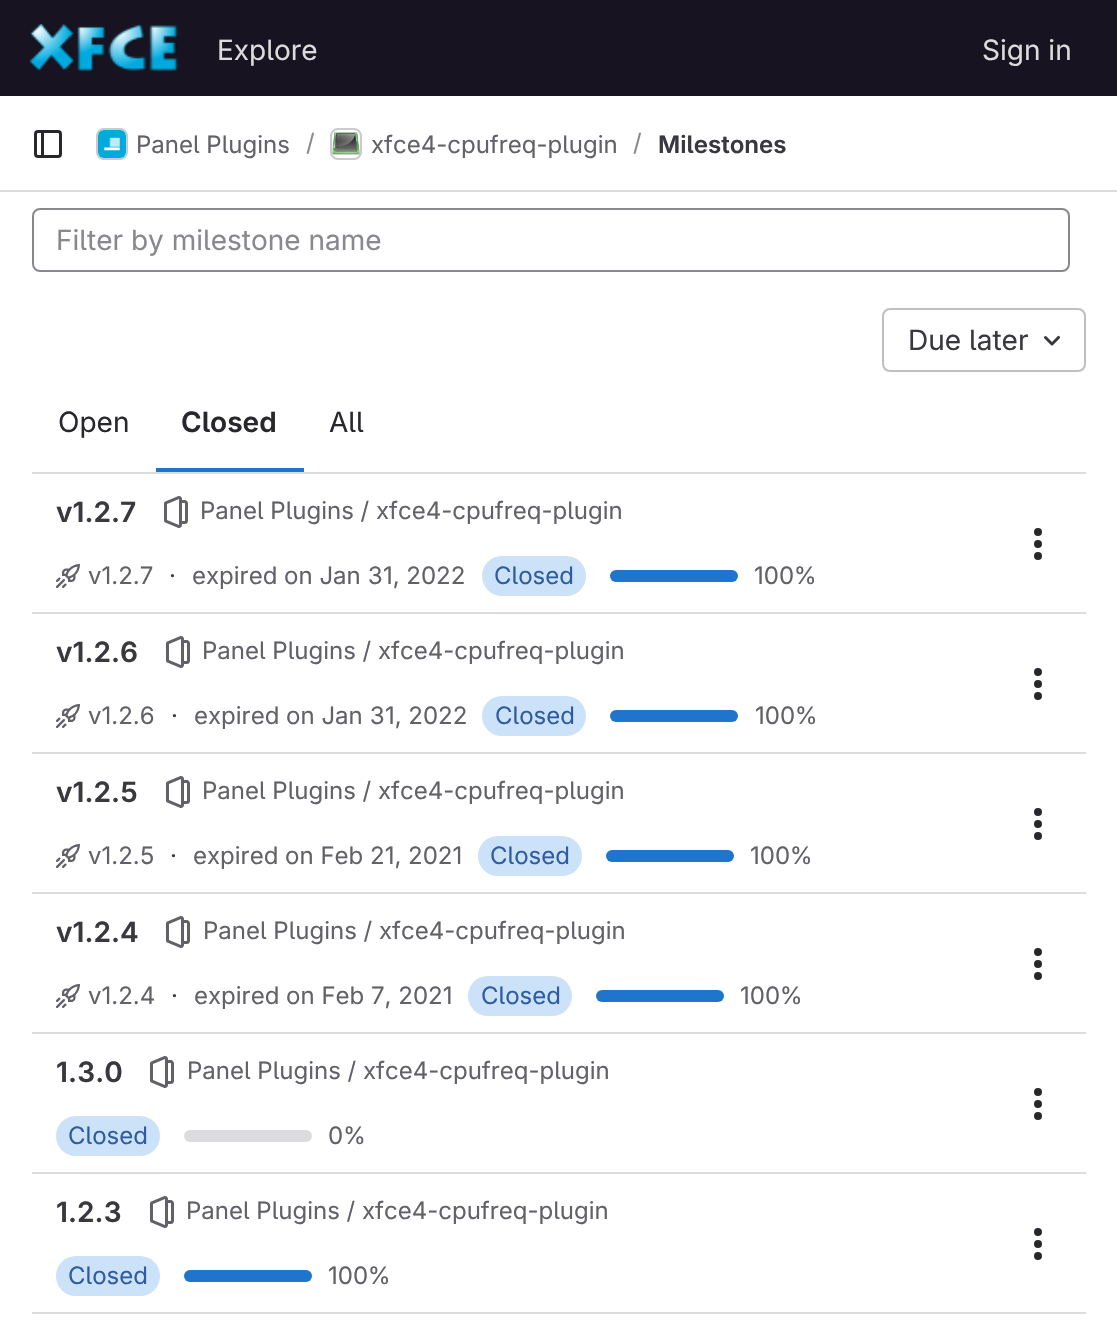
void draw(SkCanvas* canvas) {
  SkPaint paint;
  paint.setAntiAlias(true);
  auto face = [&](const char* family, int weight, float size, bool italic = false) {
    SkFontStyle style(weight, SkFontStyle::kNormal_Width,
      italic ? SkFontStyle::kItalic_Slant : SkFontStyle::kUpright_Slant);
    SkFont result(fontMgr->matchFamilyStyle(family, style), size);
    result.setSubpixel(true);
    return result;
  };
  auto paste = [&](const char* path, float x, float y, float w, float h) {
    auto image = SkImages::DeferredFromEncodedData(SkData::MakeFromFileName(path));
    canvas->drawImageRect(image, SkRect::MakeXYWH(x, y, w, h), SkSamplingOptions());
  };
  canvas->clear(0xffffffff);
  paint.setColor(0xff171321);
  canvas->drawRect(SkRect::MakeXYWH(0, 0, 1117, 96), paint);
  paste("img/1.png", 30, 24, 148, 47);
  paint.setColor(0xffdcdcde);
  canvas->drawRect(SkRect::MakeXYWH(0, 190, 1117, 2), paint);
  paste("img/2.png", 34, 130, 28, 28);
  paint.setStroke(true);
  paint.setStrokeWidth(2);
  canvas->drawRoundRect(SkRect::MakeXYWH(97, 129, 30, 30), 7, 7, paint);
  paste("img/3.png", 98, 130, 28, 28);
  paint.setColor(0x14050506);
  canvas->drawRoundRect(SkRect::MakeXYWH(97, 129, 30, 30), 7, 7, paint);
  paint.setColor(0xffdcdcde);
  canvas->drawRoundRect(SkRect::MakeXYWH(331, 129, 30, 30), 7, 7, paint);
  paste("img/4.png", 332, 132, 28, 23);
  paint.setColor(0x14050506);
  canvas->drawRoundRect(SkRect::MakeXYWH(331, 129, 30, 30), 7, 7, paint);
  paint.setStroke(false);
  paint.setColor(0xffdcdcde);
  canvas->drawRect(SkRect::MakeXYWH(32, 472, 1054, 2), paint);
  paint.setStroke(true);
  paint.setColor(0xff89888d);
  canvas->drawRoundRect(SkRect::MakeXYWH(33, 209, 1036, 62), 7, 7, paint);
  paint.setColor(0xffbfbfc3);
  canvas->drawRoundRect(SkRect::MakeXYWH(883, 309, 202, 62), 7, 7, paint);
  paste("img/5.png", 1044, 335, 17, 11);
  paint.setStroke(false);
  paint.setColor(0xff1f75cb);
  canvas->drawRect(SkRect::MakeXYWH(156, 468, 148, 4), paint);
  paint.setColor(0xffdcdcde);
  canvas->drawRect(SkRect::MakeXYWH(32, 612, 1054, 2), paint);
  paste("img/6.png", 164, 496, 24, 32);
  paste("img/7.png", 56, 564, 24, 24);
  paint.setColor(0xffcbe2f9);
  canvas->drawRoundRect(SkRect::MakeXYWH(482, 556, 104, 40), 20, 20, paint);
  paint.setColor(0xff1f75cb);
  canvas->drawRoundRect(SkRect::MakeXYWH(610, 570, 128, 12), 6, 6, paint);
  paste("img/8.png", 1034, 528, 8, 32);
  paint.setColor(0xffdcdcde);
  canvas->drawRect(SkRect::MakeXYWH(32, 752, 1054, 2), paint);
  paste("img/6.png", 166, 636, 24, 32);
  paste("img/7.png", 56, 704, 24, 24);
  paint.setColor(0xffcbe2f9);
  canvas->drawRoundRect(SkRect::MakeXYWH(482, 696, 104, 40), 20, 20, paint);
  paint.setColor(0xff1f75cb);
  canvas->drawRoundRect(SkRect::MakeXYWH(610, 710, 128, 12), 6, 6, paint);
  paste("img/8.png", 1034, 668, 8, 32);
  paint.setColor(0xffdcdcde);
  canvas->drawRect(SkRect::MakeXYWH(32, 892, 1054, 2), paint);
  paste("img/6.png", 166, 776, 24, 32);
  paste("img/7.png", 56, 844, 24, 24);
  paint.setColor(0xffcbe2f9);
  canvas->drawRoundRect(SkRect::MakeXYWH(478, 836, 104, 40), 20, 20, paint);
  paint.setColor(0xff1f75cb);
  canvas->drawRoundRect(SkRect::MakeXYWH(606, 850, 128, 12), 6, 6, paint);
  paste("img/8.png", 1034, 808, 8, 32);
  paint.setColor(0xffdcdcde);
  canvas->drawRect(SkRect::MakeXYWH(32, 1032, 1054, 2), paint);
  paste("img/6.png", 166, 916, 24, 32);
  paste("img/7.png", 56, 984, 24, 24);
  paint.setColor(0xffcbe2f9);
  canvas->drawRoundRect(SkRect::MakeXYWH(468, 976, 104, 40), 20, 20, paint);
  paint.setColor(0xff1f75cb);
  canvas->drawRoundRect(SkRect::MakeXYWH(596, 990, 128, 12), 6, 6, paint);
  paste("img/8.png", 1034, 948, 8, 32);
  paint.setColor(0xffdcdcde);
  canvas->drawRect(SkRect::MakeXYWH(32, 1172, 1054, 2), paint);
  paste("img/6.png", 150, 1056, 24, 32);
  paint.setColor(0xffcbe2f9);
  canvas->drawRoundRect(SkRect::MakeXYWH(56, 1116, 104, 40), 20, 20, paint);
  paint.setColor(0xffdcdcde);
  canvas->drawRoundRect(SkRect::MakeXYWH(184, 1130, 128, 12), 6, 6, paint);
  paste("img/8.png", 1034, 1088, 8, 32);
  canvas->drawRect(SkRect::MakeXYWH(32, 1312, 1054, 2), paint);
  paste("img/6.png", 150, 1196, 24, 32);
  paint.setColor(0xffcbe2f9);
  canvas->drawRoundRect(SkRect::MakeXYWH(56, 1256, 104, 40), 20, 20, paint);
  paint.setColor(0xff1f75cb);
  canvas->drawRoundRect(SkRect::MakeXYWH(184, 1270, 128, 12), 6, 6, paint);
  paste("img/8.png", 1034, 1228, 8, 32);
  auto f0 = face("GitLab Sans", 400, 28);
  paint.setColor(0xffdcdcde);
  canvas->drawString("Explore", 217, 60, f0, paint);
  canvas->drawString("Sign in", 982, 60, f0, paint);
  auto f1 = face("GitLab Sans", 400, 24);
  paint.setColor(0xff626168);
  canvas->drawString("Panel Plugins", 136, 153, f1, paint);
  paint.setColor(0xff89888d);
  canvas->drawString("/", 306, 151, f1, paint);
  paint.setColor(0xff626168);
  canvas->drawString("xfce4-cpufreq-plugin", 371, 153, f1, paint);
  paint.setColor(0xff89888d);
  canvas->drawString("/", 633, 151, f1, paint);
  auto f2 = face("GitLab Sans", 600, 24);
  paint.setColor(0xff3a383f);
  canvas->drawString("Milestones", 658, 153, f2, paint);
  paint.setColor(0xff89888d);
  canvas->drawString("Filter by milestone name", 56, 250, f0, paint);
  paint.setColor(0xff3a383f);
  canvas->drawString("Due later", 908, 350, f0, paint);
  paint.setColor(0xff28272d);
  canvas->drawString("Open", 58, 432, f0, paint);
  auto f3 = face("GitLab Sans", 600, 28);
  canvas->drawString("Closed", 181, 432, f3, paint);
  canvas->drawString("All", 329, 432, f0, paint);
  paint.setColor(0xff3a383f);
  canvas->drawString("v1.2.7", 56, 522, f3, paint);
  paint.setColor(0xff626168);
  canvas->drawString("Panel Plugins / xfce4-cpufreq-plugin", 200, 519, f1, paint);
  canvas->drawString("v1.2.7", 88, 584, f1, paint);
  paint.setColor(0xff3a383f);
  canvas->drawString("·", 169, 584, f1, paint);
  paint.setColor(0xff626168);
  canvas->drawString("expired on Jan 31, 2022", 192, 584, f1, paint);
  paint.setColor(0xff2f5ca0);
  canvas->drawString("Closed", 494, 584, f1, paint);
  paint.setColor(0xff626168);
  canvas->drawString("100%", 754, 584, f1, paint);
  paint.setColor(0xff3a383f);
  canvas->drawString("v1.2.6", 56, 662, f3, paint);
  paint.setColor(0xff626168);
  canvas->drawString("Panel Plugins / xfce4-cpufreq-plugin", 202, 659, f1, paint);
  canvas->drawString("v1.2.6", 88, 724, f1, paint);
  paint.setColor(0xff3a383f);
  canvas->drawString("·", 171, 724, f1, paint);
  paint.setColor(0xff626168);
  canvas->drawString("expired on Jan 31, 2022", 194, 724, f1, paint);
  paint.setColor(0xff2f5ca0);
  canvas->drawString("Closed", 495, 724, f1, paint);
  paint.setColor(0xff626168);
  canvas->drawString("100%", 755, 724, f1, paint);
  paint.setColor(0xff3a383f);
  canvas->drawString("v1.2.5", 56, 802, f3, paint);
  paint.setColor(0xff626168);
  canvas->drawString("Panel Plugins / xfce4-cpufreq-plugin", 202, 799, f1, paint);
  canvas->drawString("v1.2.5", 88, 864, f1, paint);
  paint.setColor(0xff3a383f);
  canvas->drawString("·", 170, 864, f1, paint);
  paint.setColor(0xff626168);
  canvas->drawString("expired on Feb 21, 2021", 193, 864, f1, paint);
  paint.setColor(0xff2f5ca0);
  canvas->drawString("Closed", 490, 864, f1, paint);
  paint.setColor(0xff626168);
  canvas->drawString("100%", 750, 864, f1, paint);
  paint.setColor(0xff3a383f);
  canvas->drawString("v1.2.4", 56, 942, f3, paint);
  paint.setColor(0xff626168);
  canvas->drawString("Panel Plugins / xfce4-cpufreq-plugin", 203, 939, f1, paint);
  canvas->drawString("v1.2.4", 88, 1004, f1, paint);
  paint.setColor(0xff3a383f);
  canvas->drawString("·", 171, 1004, f1, paint);
  paint.setColor(0xff626168);
  canvas->drawString("expired on Feb 7, 2021", 194, 1004, f1, paint);
  paint.setColor(0xff2f5ca0);
  canvas->drawString("Closed", 481, 1004, f1, paint);
  paint.setColor(0xff626168);
  canvas->drawString("100%", 740, 1004, f1, paint);
  paint.setColor(0xff3a383f);
  canvas->drawString("1.3.0", 56, 1082, f3, paint);
  paint.setColor(0xff626168);
  canvas->drawString("Panel Plugins / xfce4-cpufreq-plugin", 187, 1079, f1, paint);
  paint.setColor(0xff2f5ca0);
  canvas->drawString("Closed", 68, 1144, f1, paint);
  paint.setColor(0xff626168);
  canvas->drawString("0%", 328, 1144, f1, paint);
  paint.setColor(0xff3a383f);
  canvas->drawString("1.2.3", 56, 1222, f3, paint);
  paint.setColor(0xff626168);
  canvas->drawString("Panel Plugins / xfce4-cpufreq-plugin", 186, 1219, f1, paint);
  paint.setColor(0xff2f5ca0);
  canvas->drawString("Closed", 68, 1284, f1, paint);
  paint.setColor(0xff626168);
  canvas->drawString("100%", 328, 1284, f1, paint);
}
